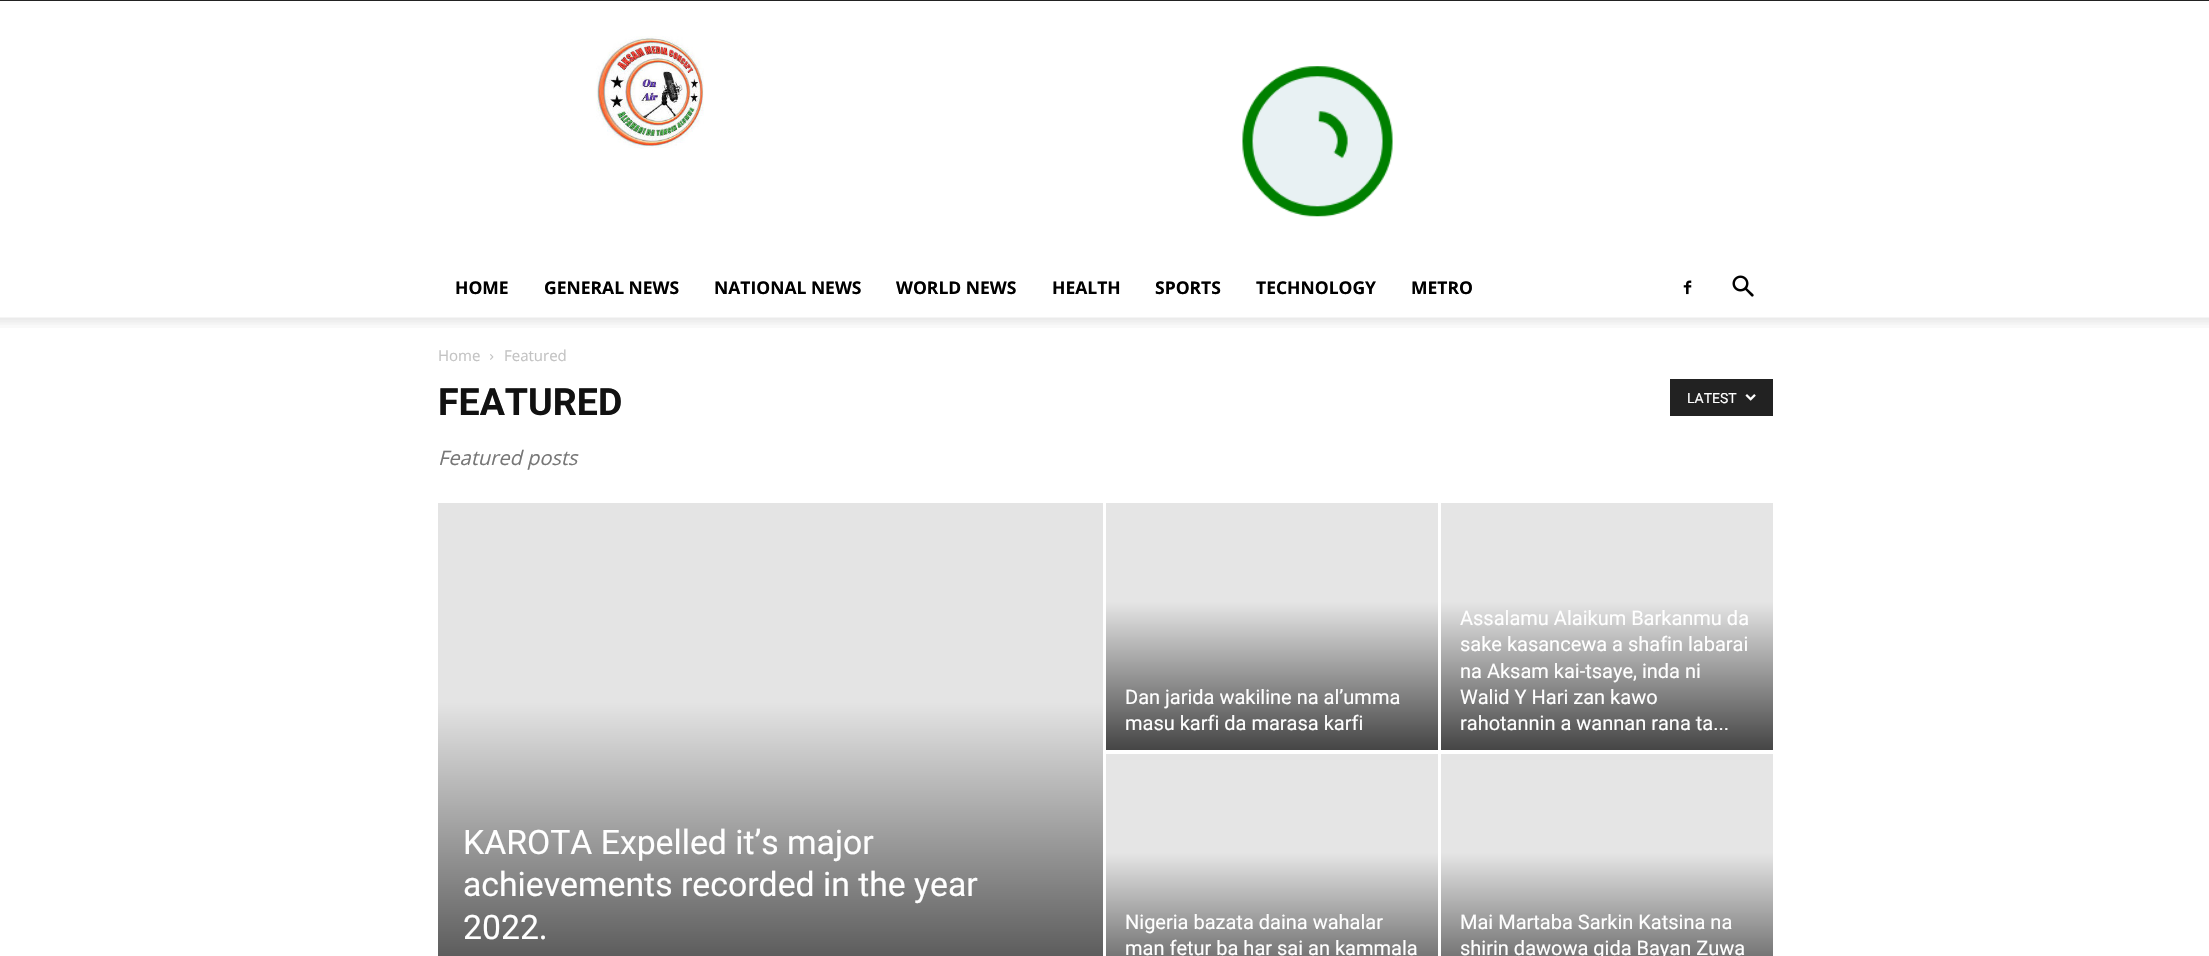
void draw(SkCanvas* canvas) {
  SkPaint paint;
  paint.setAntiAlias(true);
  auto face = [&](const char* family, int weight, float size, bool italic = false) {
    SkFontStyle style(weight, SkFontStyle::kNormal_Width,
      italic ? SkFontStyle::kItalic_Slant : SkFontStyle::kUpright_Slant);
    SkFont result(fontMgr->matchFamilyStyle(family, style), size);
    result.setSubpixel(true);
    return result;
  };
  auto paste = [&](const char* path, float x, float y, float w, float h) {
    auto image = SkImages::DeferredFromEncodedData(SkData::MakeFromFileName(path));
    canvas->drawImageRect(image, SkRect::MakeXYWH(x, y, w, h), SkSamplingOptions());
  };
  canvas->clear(0xffffffff);
  paint.setColor(0xff222222);
  canvas->drawRect(SkRect::MakeXYWH(0, 0, 2209, 1), paint);
  paste("img/1.png", 596, 36, 108, 113);
  paste("img/2.png", 1242, 66, 151, 151);
  paste("img/3.png", 1683, 280, 9, 15);
  paste("img/4.png", 1732, 275, 22, 22);
  paste("img/5.png", 0, 317, 2209, 11);
  paste("img/6.png", 490, 354, 4, 6);
  canvas->drawRect(SkRect::MakeXYWH(1670, 379, 103, 37), paint);
  paste("img/7.png", 1745, 394, 11, 7);
  {
    const SkColor colors[] = {0xffe4e4e4, 0xff454545};
    const float stops[] = {0.4f, 1};
    const SkPoint ends[] = {{770, 503}, {770, 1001}};
    paint.setShader(SkGradientShader::MakeLinear(ends, colors, stops, 2, SkTileMode::kClamp));
    paint.setAlpha(255);
  }
  canvas->drawRect(SkRect::MakeXYWH(438, 503, 665, 453), paint);
  {
    const SkColor colors[] = {0xffe5e5e5, 0xff454545};
    const float stops[] = {0.4f, 1};
    const SkPoint ends[] = {{1272, 503}, {1272, 750}};
    paint.setShader(SkGradientShader::MakeLinear(ends, colors, stops, 2, SkTileMode::kClamp));
    paint.setAlpha(255);
  }
  canvas->drawRect(SkRect::MakeXYWH(1106, 503, 332, 247), paint);
  {
    const SkColor colors[] = {0xffe5e5e5, 0xff454545};
    const float stops[] = {0.4f, 1};
    const SkPoint ends[] = {{1607, 503}, {1607, 750}};
    paint.setShader(SkGradientShader::MakeLinear(ends, colors, stops, 2, SkTileMode::kClamp));
    paint.setAlpha(255);
  }
  canvas->drawRect(SkRect::MakeXYWH(1441, 503, 332, 247), paint);
  {
    const SkColor colors[] = {0xffe5e5e5, 0xff454545};
    const float stops[] = {0.4f, 1};
    const SkPoint ends[] = {{1272, 754}, {1272, 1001}};
    paint.setShader(SkGradientShader::MakeLinear(ends, colors, stops, 2, SkTileMode::kClamp));
    paint.setAlpha(255);
  }
  canvas->drawRect(SkRect::MakeXYWH(1106, 754, 332, 202), paint);
  {
    const SkColor colors[] = {0xffe5e5e5, 0xff454545};
    const float stops[] = {0.4f, 1};
    const SkPoint ends[] = {{1607, 754}, {1607, 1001}};
    paint.setShader(SkGradientShader::MakeLinear(ends, colors, stops, 2, SkTileMode::kClamp));
    paint.setAlpha(255);
  }
  canvas->drawRect(SkRect::MakeXYWH(1441, 754, 332, 202), paint);
  auto f0 = face("Open Sans", 700, 17.5f);
  paint.setShader(nullptr);
  paint.setColor(0xff000000);
  {
    const struct { const char* s; float x, y; } items[] = {
      {"HOME", 455, 294},
      {"GENERAL NEWS", 544, 294},
      {"NATIONAL NEWS", 714, 294},
      {"WORLD NEWS", 896, 294},
      {"HEALTH", 1052, 294},
      {"SPORTS", 1155, 294},
      {"TECHNOLOGY", 1256, 294},
      {"METRO", 1411, 294},
    };
    for (auto [s, x, y] : items) {
      canvas->drawString(s, x, y, f0, paint);
    }
  }
  auto f1 = face("Open Sans", 400, 15);
  paint.setColor(0xffc3c3c3);
  canvas->drawString("Home", 438, 361, f1, paint);
  canvas->drawString("Featured", 504, 361, f1, paint);
  auto f2 = face("Roboto", 700, 37.5f);
  paint.setColor(0xff111111);
  canvas->drawString("FEATURED", 438, 415, f2, paint);
  auto f3 = face("Open Sans", 400, 20, true);
  paint.setColor(0xff777777);
  canvas->drawString("Featured posts", 438, 465, f3, paint);
  auto f4 = face("Roboto", 400, 14);
  paint.setColor(0xffffffff);
  canvas->drawString("LATEST", 1687, 403, f4, paint);
  auto f5 = face("Roboto", 400, 33.75f);
  {
    const struct { const char* s; float x, y; } items[] = {
      {"KAROTA Expelled it’s major", 463, 854},
      {"achievements recorded in the year", 463, 896},
      {"2022.", 463, 939},
    };
    for (auto [s, x, y] : items) {
      canvas->drawString(s, x, y, f5, paint);
    }
  }
  auto f6 = face("Roboto", 400, 20);
  {
    const struct { const char* s; float x, y; } items[] = {
      {"Dan jarida wakiline na al’umma", 1125, 704},
      {"masu karfi da marasa karfi", 1125, 730},
      {"Assalamu Alaikum Barkanmu da", 1460, 625},
      {"sake kasancewa a shafin labarai", 1460, 651},
      {"na Aksam kai-tsaye, inda ni", 1460, 678},
      {"Walid Y Hari zan kawo", 1460, 704},
      {"rahotannin a wannan rana ta...", 1460, 730},
      {"Nigeria bazata daina wahalar", 1125, 929},
      {"man fetur ba har sai an kammala", 1125, 955},
      {"Mai Martaba Sarkin Katsina na", 1460, 929},
      {"shirin dawowa gida Bayan Zuwa", 1460, 955},
    };
    for (auto [s, x, y] : items) {
      canvas->drawString(s, x, y, f6, paint);
    }
  }
}
